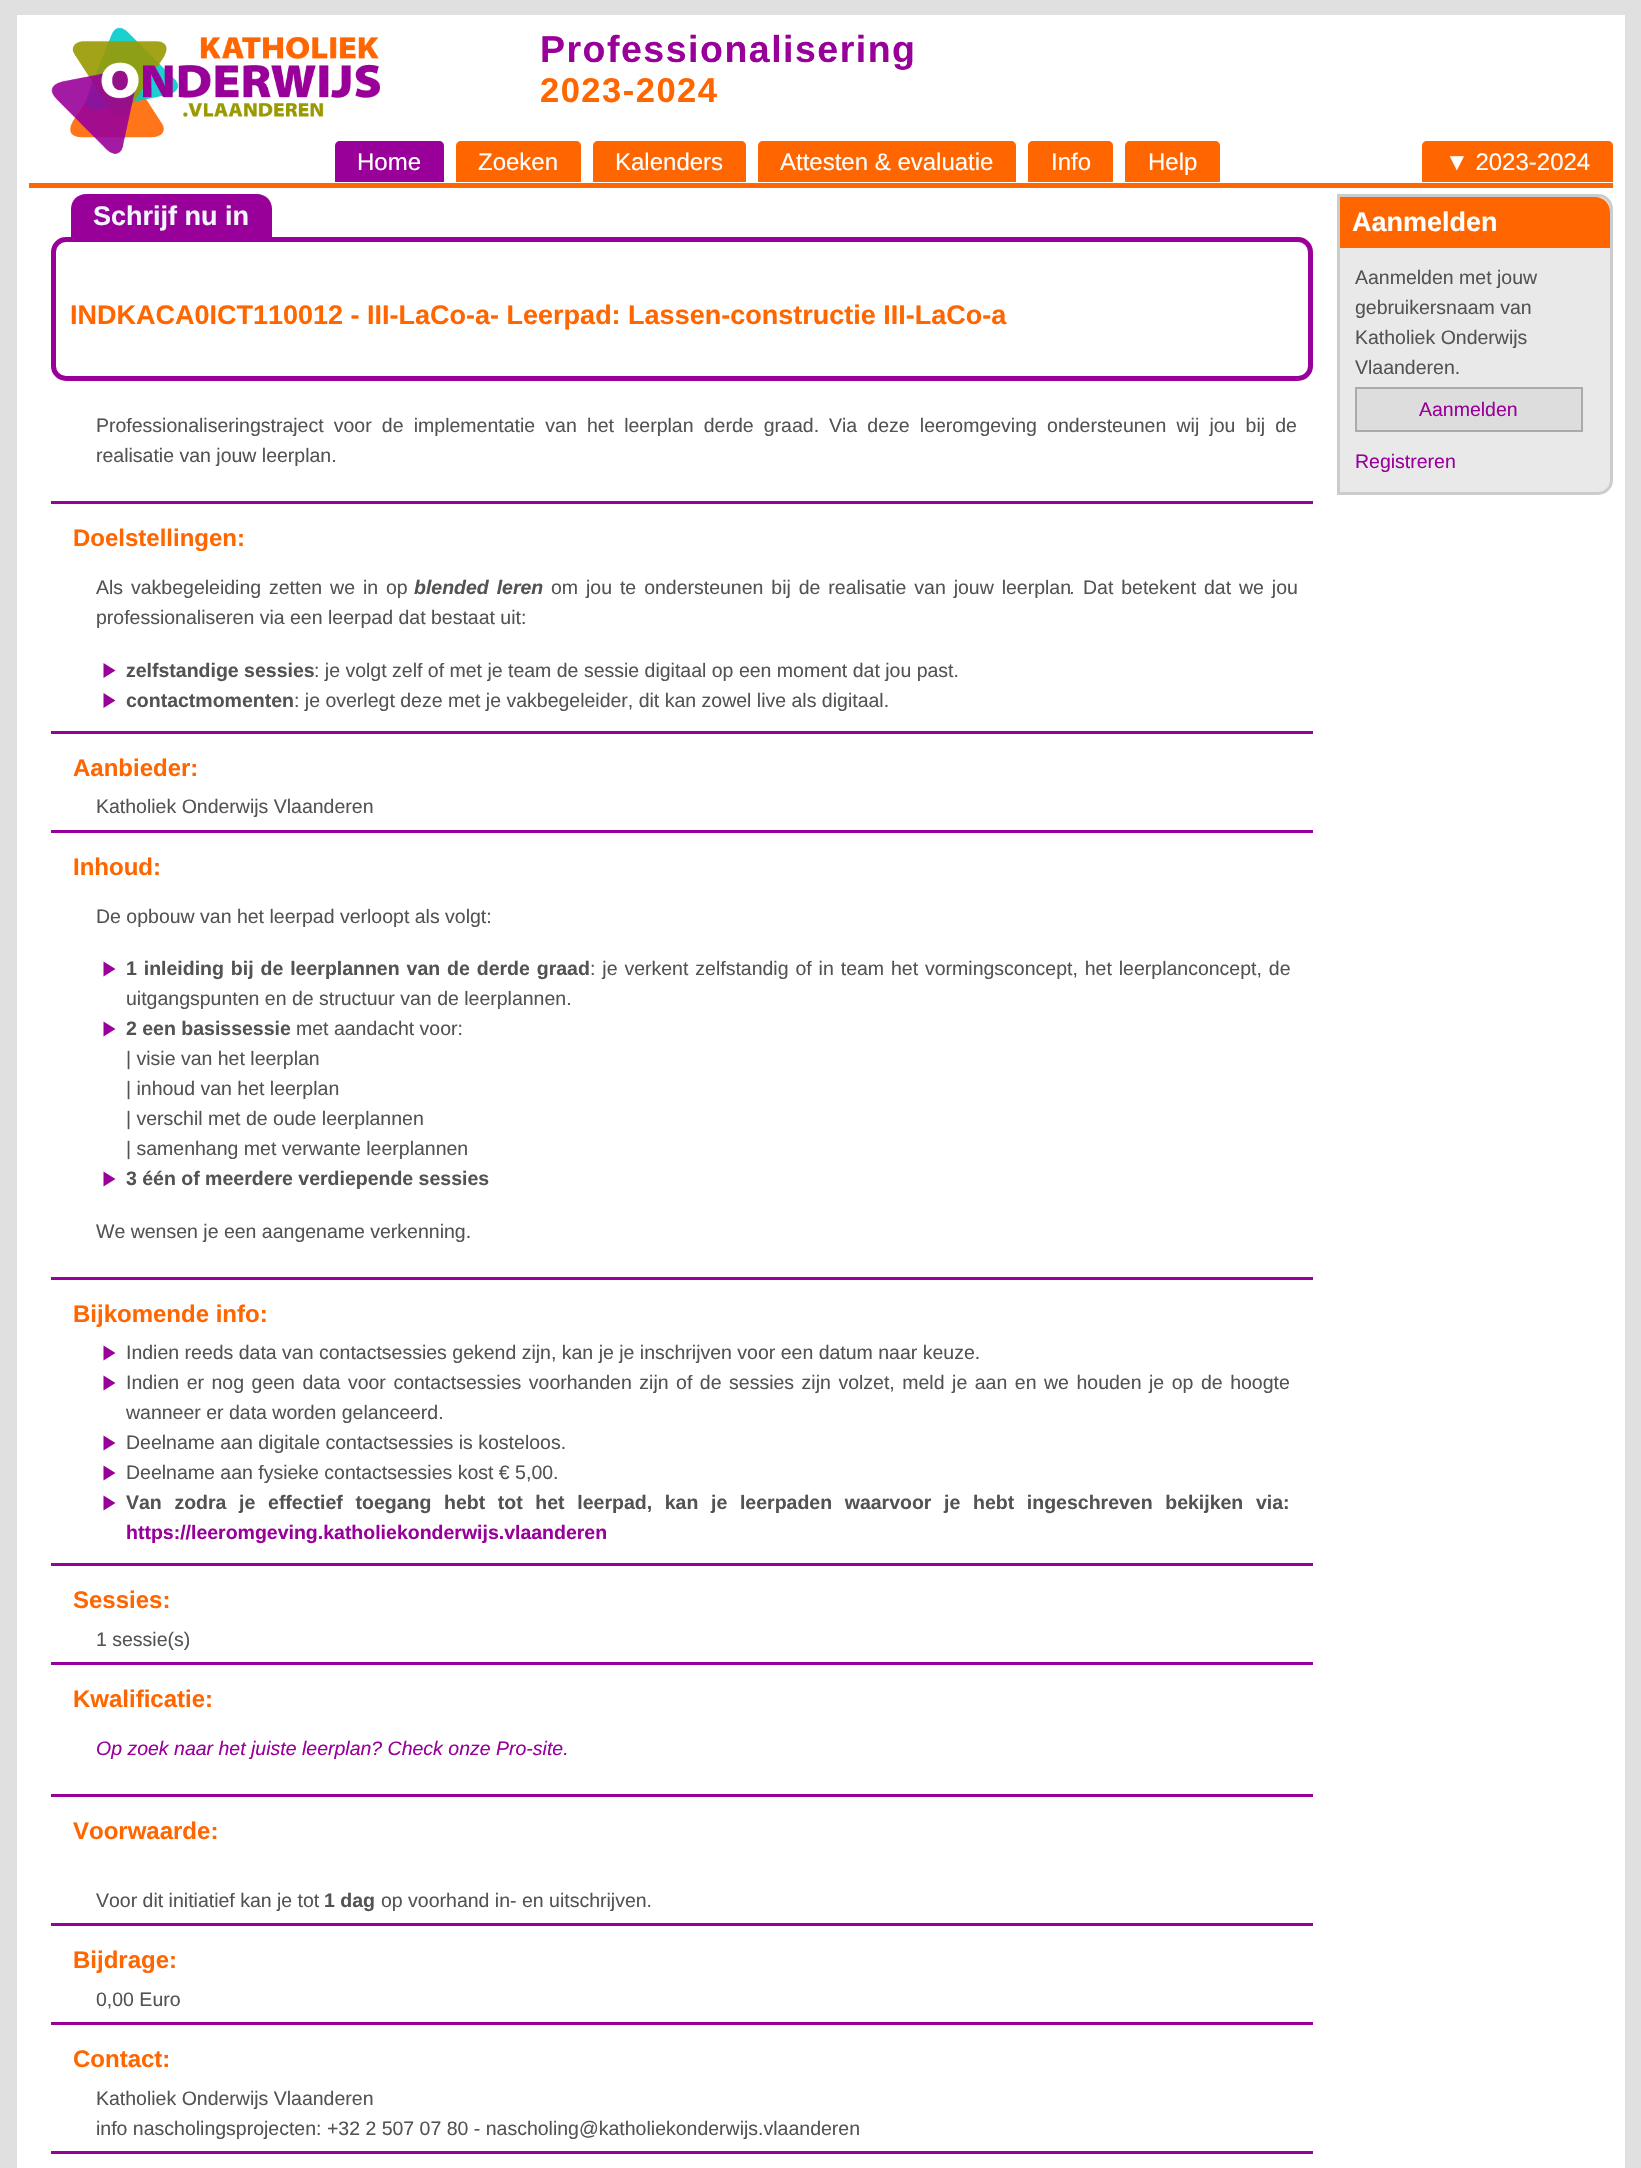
void draw(SkCanvas* canvas) {
  SkPaint paint;
  paint.setAntiAlias(true);
  auto face = [&](const char* family, int weight, float size, bool italic = false) {
    SkFontStyle style(weight, SkFontStyle::kNormal_Width,
      italic ? SkFontStyle::kItalic_Slant : SkFontStyle::kUpright_Slant);
    SkFont result(fontMgr->matchFamilyStyle(family, style), size);
    result.setSubpixel(true);
    return result;
  };
  auto writeSpaced = [&](const char* s, float x, float y, const SkFont& font, const SkPaint& ink, float letter, float word) {
    std::vector<SkGlyphID> glyphs(font.countText(s, strlen(s), SkTextEncoding::kUTF8));
    std::vector<float> xs(glyphs.size());
    font.textToGlyphs(s, strlen(s), SkTextEncoding::kUTF8, glyphs);
    font.getXPos(glyphs, xs, x);
    float extra = 0;
    for (size_t i = 0; i < glyphs.size(); i++) {
      xs[i] += extra;
      extra += letter + word * (glyphs[i] == font.unicharToGlyph(' '));
    }
    canvas->drawTextBlob(SkTextBlob::MakeFromPosHGlyphs(glyphs, xs, y, font), 0, 0, ink);
  };
  auto paste = [&](const char* path, float x, float y, float w, float h) {
    auto image = SkImages::DeferredFromEncodedData(SkData::MakeFromFileName(path));
    canvas->drawImageRect(image, SkRect::MakeXYWH(x, y, w, h), SkSamplingOptions());
  };
  auto shape = [&](const char* data, bool evenOdd = false) {
    SkPath result = *SkParsePath::FromSVGString(data);
    if (evenOdd) result.setFillType(SkPathFillType::kEvenOdd);
    return result;
  };
  canvas->clear(0xffe0e0e0);
  paint.setColor(0xffffffff);
  canvas->drawRect(SkRect::MakeXYWH(17, 15, 1608, 2153), paint);
  paste("img/1.png", 51, 27, 329, 127);
  paint.setColor(0xffff6600);
  canvas->drawRect(SkRect::MakeXYWH(29, 183, 1584, 5), paint);
  paint.setColor(0xff990099);
  canvas->drawPath(shape("M340 141H439C442 141 444 143 444 146V182H335V146C335 143 337 141 340 141Z"), paint);
  paint.setColor(0xffff6600);
  canvas->drawPath(shape("M461 141H576C579 141 581 143 581 146V182H456V146C456 143 458 141 461 141Z"), paint);
  canvas->drawPath(shape("M598 141H741C744 141 746 143 746 146V182H593V146C593 143 595 141 598 141Z"), paint);
  canvas->drawPath(shape("M763 141H1011C1014 141 1016 143 1016 146V182H758V146C758 143 760 141 763 141Z"), paint);
  canvas->drawPath(shape("M1033 141H1108C1111 141 1113 143 1113 146V182H1028V146C1028 143 1030 141 1033 141Z"), paint);
  canvas->drawPath(shape("M1130 141H1215C1218 141 1220 143 1220 146V182H1125V146C1125 143 1127 141 1130 141Z"), paint);
  canvas->drawPath(shape("M1427 141H1608C1611 141 1613 143 1613 146V182H1422V146C1422 143 1424 141 1427 141Z"), paint);
  paint.setStroke(true);
  paint.setStrokeWidth(5);
  paint.setColor(0xff990099);
  canvas->drawRoundRect(SkRect::MakeXYWH(53.5f, 239.5f, 1257, 139), 12.5f, 12.5f, paint);
  paint.setStroke(false);
  canvas->drawPath(shape("M86 194H257C265.5 194 272 200.5 272 209V239H71V209C71 200.5 77.5 194 86 194Z"), paint);
  canvas->drawRect(SkRect::MakeXYWH(51, 501, 1262, 3), paint);
  canvas->drawRect(SkRect::MakeXYWH(51, 731, 1262, 3), paint);
  canvas->drawPath(shape("M103.5 678V663L115.5 670.5Z"), paint);
  canvas->drawPath(shape("M103.5 708V693L115.5 700.5Z"), paint);
  canvas->drawRect(SkRect::MakeXYWH(51, 830, 1262, 3), paint);
  canvas->drawRect(SkRect::MakeXYWH(51, 1277, 1262, 3), paint);
  canvas->drawPath(shape("M103.5 976.5V961.5L115.5 969Z"), paint);
  canvas->drawPath(shape("M103.5 1036.5V1021.5L115.5 1029Z"), paint);
  canvas->drawPath(shape("M103.5 1186.5V1171.5L115.5 1179Z"), paint);
  canvas->drawRect(SkRect::MakeXYWH(51, 1563, 1262, 3), paint);
  canvas->drawPath(shape("M103.5 1360.5V1345.5L115.5 1353Z"), paint);
  canvas->drawPath(shape("M103.5 1390.5V1375.5L115.5 1383Z"), paint);
  canvas->drawPath(shape("M103.5 1450.5V1435.5L115.5 1443Z"), paint);
  canvas->drawPath(shape("M103.5 1480.5V1465.5L115.5 1473Z"), paint);
  canvas->drawPath(shape("M103.5 1510.5V1495.5L115.5 1503Z"), paint);
  {
    const struct { float x, y, w, h; SkColor color; } items[] = {
      {51, 1662, 1262, 3, 0xff990099},
      {51, 1794, 1262, 3, 0xff990099},
      {51, 1923, 1262, 3, 0xff990099},
      {51, 2022, 1262, 3, 0xff990099},
      {51, 2151, 1262, 3, 0xff990099},
    };
    for (auto [x, y, w, h, color] : items) {
      paint.setColor(color);
      canvas->drawRect(SkRect::MakeXYWH(x, y, w, h), paint);
    }
  }
  paint.setColor(0xffe9e9e9);
  canvas->drawPath(shape("M1338.5 195.5H1598C1605.5 195.5 1611.5 201.5 1611.5 209V480C1611.5 487.5 1605.5 493.5 1598 493.5H1338.5Z"), paint);
  paint.setStroke(true);
  paint.setStrokeWidth(3);
  paint.setColor(0xffcccccc);
  canvas->drawPath(shape("M1338.5 195.5H1598C1605.5 195.5 1611.5 201.5 1611.5 209V480C1611.5 487.5 1605.5 493.5 1598 493.5H1338.5Z"), paint);
  paint.setStroke(false);
  paint.setColor(0xffff6600);
  canvas->drawPath(shape("M1340 197H1595C1603.5 197 1610 203.5 1610 212V248H1340Z"), paint);
  paint.setColor(0xffdddddd);
  canvas->drawRect(SkRect::MakeXYWH(1356, 388, 226, 43), paint);
  paint.setStroke(true);
  paint.setStrokeWidth(2);
  paint.setColor(0xffaaaaaa);
  canvas->drawRect(SkRect::MakeXYWH(1356, 388, 226, 43), paint);
  auto f0 = face("Liberation Sans", 700, 37.5f);
  paint.setStroke(false);
  paint.setColor(0xff990099);
  writeSpaced("Professionalisering", 540, 62, f0, paint, 1.5f, 0);
  auto f1 = face("Liberation Sans", 700, 34.5f);
  paint.setColor(0xffff6600);
  writeSpaced("2023-2024", 540, 102, f1, paint, 1.5f, 0);
  auto f2 = face("Liberation Sans", 400, 24);
  paint.setColor(0xffffffff);
  {
    const struct { const char* s; float x, y; } items[] = {
      {"Home", 357, 170},
      {"Zoeken", 478, 170},
      {"Kalenders", 615, 170},
      {"Attesten & evaluatie", 780, 170},
      {"Info", 1051, 170},
      {"Help", 1148, 170},
      {"▼ 2023-2024", 1445, 170},
    };
    for (auto [s, x, y] : items) {
      canvas->drawString(s, x, y, f2, paint);
    }
  }
  auto f3 = face("Liberation Sans", 700, 27);
  paint.setColor(0xfff1f6fe);
  canvas->drawString("Schrijf nu in", 93, 225, f3, paint);
  paint.setColor(0xffff6600);
  canvas->drawString("INDKACA0ICT110012 - III-LaCo-a- Leerpad: Lassen-constructie III-LaCo-a", 70, 324, f3, paint);
  auto f4 = face("Liberation Sans", 400, 19.5f);
  paint.setColor(0xff535353);
  writeSpaced("Professionaliseringstraject voor de implementatie van het leerplan derde graad.", 96, 432, f4, paint, 0, 4.75f);
  writeSpaced("Via deze leeromgeving ondersteunen wij jou bij de", 829, 432, f4, paint, 0, 4.75f);
  canvas->drawString("realisatie van jouw leerplan.", 96, 462, f4, paint);
  auto f5 = face("Liberation Sans", 700, 24);
  paint.setColor(0xffff6600);
  canvas->drawString("Doelstellingen:", 73, 546, f5, paint);
  paint.setColor(0xff535353);
  writeSpaced("Als vakbegeleiding zetten we in op", 96, 594, f4, paint, 0, 2.5f);
  auto f6 = face("Liberation Sans", 700, 19.5f, true);
  writeSpaced("blended leren", 414, 594, f6, paint, 0, 2.5f);
  writeSpaced("om jou te ondersteunen bij de realisatie van jouw leerplan", 551, 594, f4, paint, 0, 2.5f);
  auto f7 = face("Liberation Sans", 400, 19.5f, true);
  canvas->drawString(".", 1070, 594, f7, paint);
  writeSpaced("Dat betekent dat we jou", 1083, 594, f4, paint, 0, 2.5f);
  canvas->drawString("professionaliseren via een leerpad dat bestaat uit:", 96, 624, f4, paint);
  auto f8 = face("Liberation Sans", 700, 19.5f);
  canvas->drawString("zelfstandige sessies", 126, 677, f8, paint);
  canvas->drawString(": je volgt zelf of met je team de sessie digitaal op een moment dat jou past.", 314, 677, f4, paint);
  canvas->drawString("contactmomenten", 126, 707, f8, paint);
  canvas->drawString(": je overlegt deze met je vakbegeleider, dit kan zowel live als digitaal.", 294, 707, f4, paint);
  paint.setColor(0xffff6600);
  canvas->drawString("Aanbieder:", 73, 776, f5, paint);
  paint.setColor(0xff535353);
  canvas->drawString("Katholiek Onderwijs Vlaanderen", 96, 813, f4, paint);
  paint.setColor(0xffff6600);
  canvas->drawString("Inhoud:", 73, 875, f5, paint);
  paint.setColor(0xff535353);
  canvas->drawString("De opbouw van het leerpad verloopt als volgt:", 96, 923, f4, paint);
  writeSpaced("1 inleiding bij de leerplannen van de derde graad", 126, 975, f8, paint, 0, 1.5f);
  writeSpaced(": je verkent zelfstandig of in team het vormingsconcept, het leerplanconcept, de", 590, 975, f4, paint, 0, 1.5f);
  canvas->drawString("uitgangspunten en de structuur van de leerplannen.", 126, 1005, f4, paint);
  canvas->drawString("2 een basissessie", 126, 1035, f8, paint);
  {
    const struct { const char* s; float x, y; } items[] = {
      {"met aandacht voor:", 296, 1035},
      {"| visie van het leerplan", 126, 1065},
      {"| inhoud van het leerplan", 126, 1095},
      {"| verschil met de oude leerplannen", 126, 1125},
      {"| samenhang met verwante leerplannen", 126, 1155},
    };
    for (auto [s, x, y] : items) {
      canvas->drawString(s, x, y, f4, paint);
    }
  }
  canvas->drawString("3 één of meerdere verdiepende sessies", 126, 1185, f8, paint);
  canvas->drawString("We wensen je een aangename verkenning.", 96, 1238, f4, paint);
  paint.setColor(0xffff6600);
  canvas->drawString("Bijkomende info:", 73, 1322, f5, paint);
  paint.setColor(0xff535353);
  canvas->drawString("Indien reeds data van contactsessies gekend zijn, kan je je inschrijven voor een datum naar keuze.", 126, 1359, f4, paint);
  writeSpaced("Indien er nog geen data voor contactsessies voorhanden zijn of de sessies zijn volzet, meld je aan en we houden je op de hoogte", 126, 1389, f4, paint, 0, 2.1f);
  {
    const struct { const char* s; float x, y; } items[] = {
      {"wanneer er data worden gelanceerd.", 126, 1419},
      {"Deelname aan digitale contactsessies is kosteloos.", 126, 1449},
      {"Deelname aan fysieke contactsessies kost € 5,00.", 126, 1479},
    };
    for (auto [s, x, y] : items) {
      canvas->drawString(s, x, y, f4, paint);
    }
  }
  writeSpaced("Van zodra je effectief toegang hebt tot het leerpad, kan je leerpaden waarvoor je hebt ingeschreven bekijken via:", 126, 1509, f8, paint, 0, 7.25f);
  paint.setColor(0xff990099);
  canvas->drawString("https://leeromgeving.katholiekonderwijs.vlaanderen", 126, 1539, f8, paint);
  paint.setColor(0xffff6600);
  canvas->drawString("Sessies:", 73, 1608, f5, paint);
  paint.setColor(0xff535353);
  canvas->drawString("1 sessie(s)", 96, 1646, f4, paint);
  paint.setColor(0xffff6600);
  canvas->drawString("Kwalificatie:", 73, 1707, f5, paint);
  paint.setColor(0xff990099);
  canvas->drawString("Op zoek naar het juiste leerplan? Check onze Pro-site.", 96, 1755, f7, paint);
  paint.setColor(0xffff6600);
  canvas->drawString("Voorwaarde:", 73, 1839, f5, paint);
  paint.setColor(0xff535353);
  canvas->drawString("Voor dit initiatief kan je tot", 96, 1907, f4, paint);
  canvas->drawString("1 dag", 324, 1907, f8, paint);
  canvas->drawString("op voorhand in- en uitschrijven.", 381, 1907, f4, paint);
  paint.setColor(0xffff6600);
  canvas->drawString("Bijdrage:", 73, 1968, f5, paint);
  paint.setColor(0xff535353);
  canvas->drawString("0,00 Euro", 96, 2006, f4, paint);
  paint.setColor(0xffff6600);
  canvas->drawString("Contact:", 73, 2067, f5, paint);
  paint.setColor(0xff535353);
  canvas->drawString("Katholiek Onderwijs Vlaanderen", 96, 2105, f4, paint);
  canvas->drawString("info nascholingsprojecten: +32 2 507 07 80 - nascholing@katholiekonderwijs.vlaanderen", 96, 2135, f4, paint);
  paint.setColor(0xffffffff);
  canvas->drawString("Aanmelden", 1352, 231, f3, paint);
  paint.setColor(0xff535353);
  {
    const struct { const char* s; float x, y; } items[] = {
      {"Aanmelden met jouw", 1355, 284},
      {"gebruikersnaam van", 1355, 314},
      {"Katholiek Onderwijs", 1355, 344},
      {"Vlaanderen.", 1355, 374},
    };
    for (auto [s, x, y] : items) {
      canvas->drawString(s, x, y, f4, paint);
    }
  }
  paint.setColor(0xff990099);
  canvas->drawString("Aanmelden", 1419, 416, f4, paint);
  canvas->drawString("Registreren", 1355, 468, f4, paint);
}
